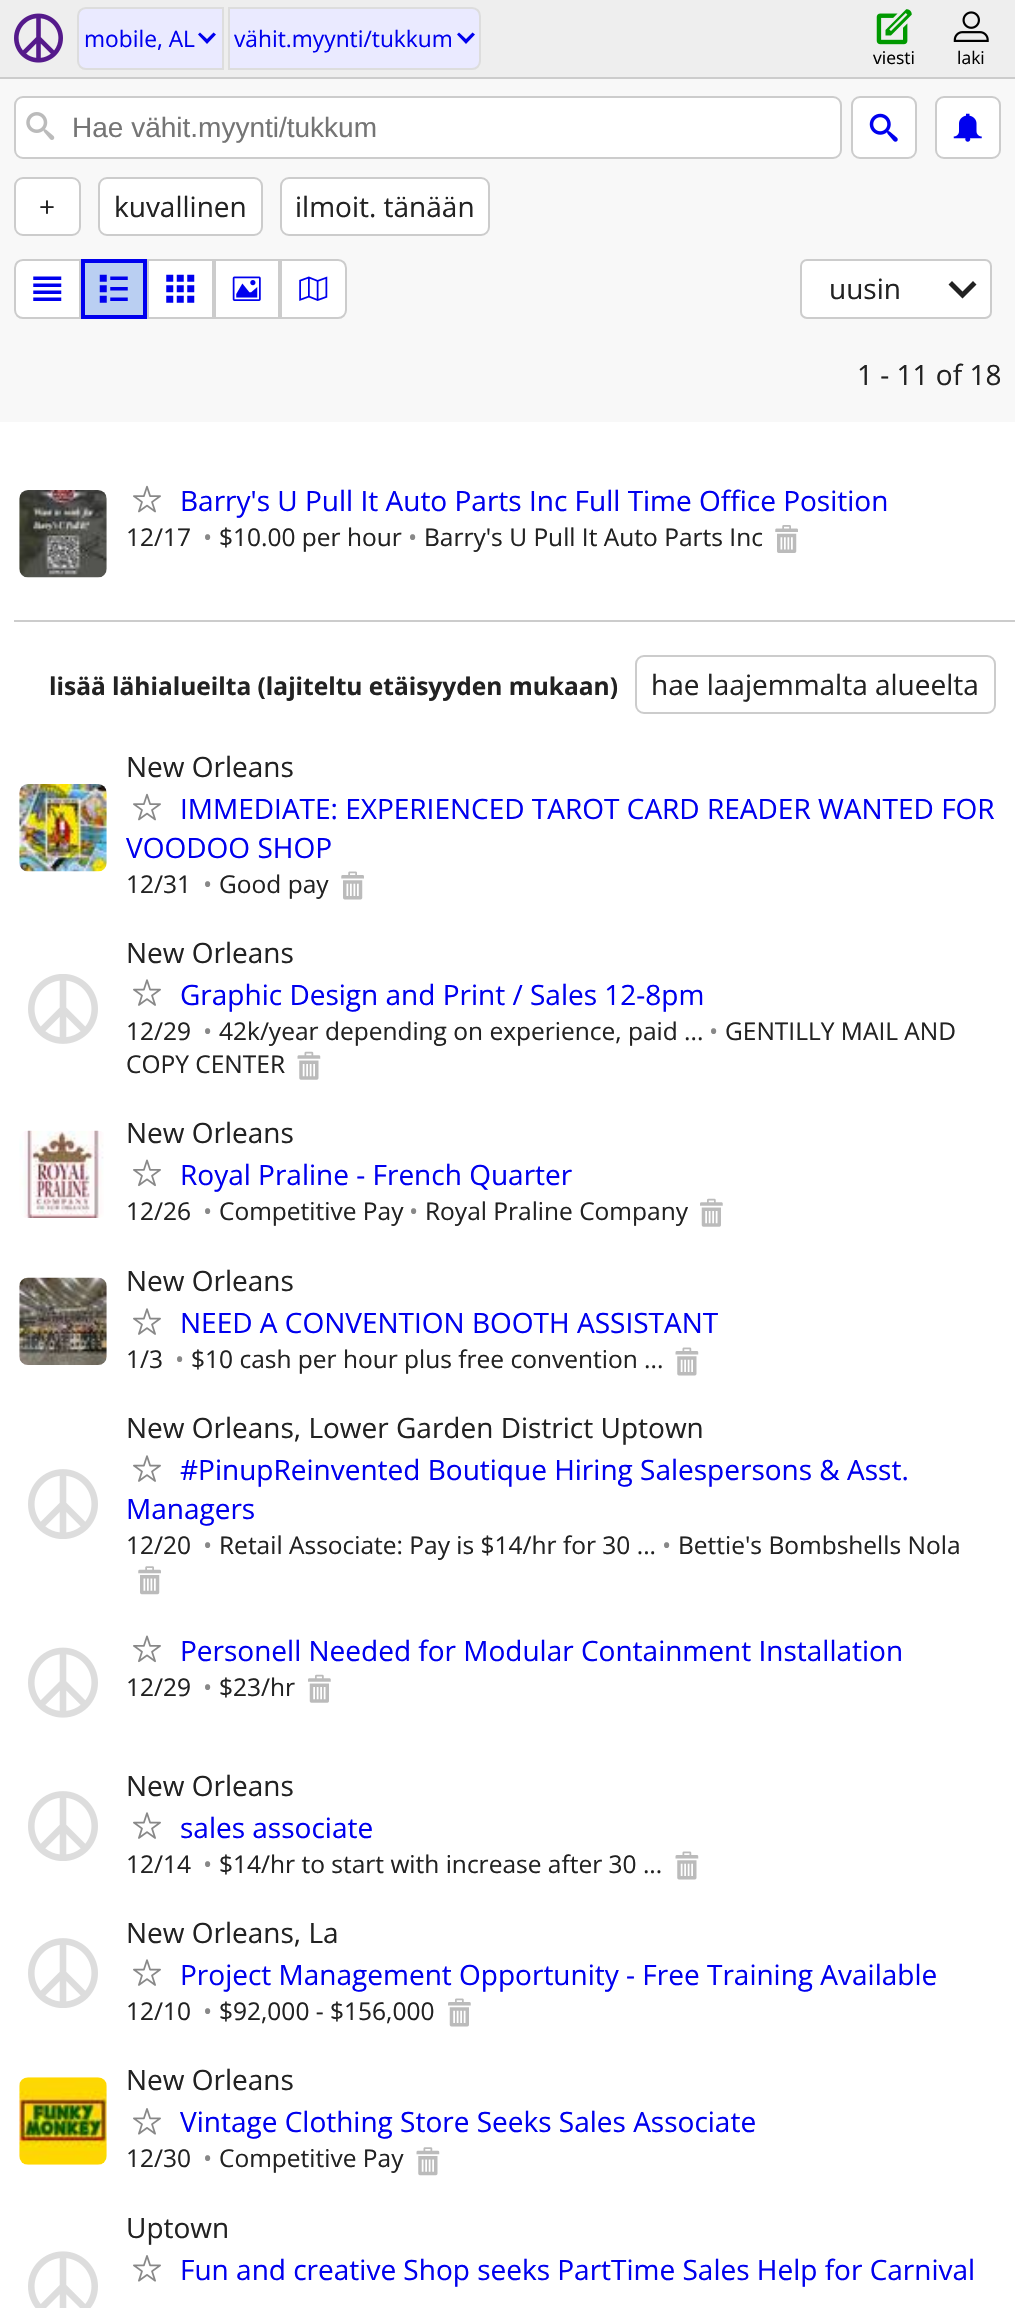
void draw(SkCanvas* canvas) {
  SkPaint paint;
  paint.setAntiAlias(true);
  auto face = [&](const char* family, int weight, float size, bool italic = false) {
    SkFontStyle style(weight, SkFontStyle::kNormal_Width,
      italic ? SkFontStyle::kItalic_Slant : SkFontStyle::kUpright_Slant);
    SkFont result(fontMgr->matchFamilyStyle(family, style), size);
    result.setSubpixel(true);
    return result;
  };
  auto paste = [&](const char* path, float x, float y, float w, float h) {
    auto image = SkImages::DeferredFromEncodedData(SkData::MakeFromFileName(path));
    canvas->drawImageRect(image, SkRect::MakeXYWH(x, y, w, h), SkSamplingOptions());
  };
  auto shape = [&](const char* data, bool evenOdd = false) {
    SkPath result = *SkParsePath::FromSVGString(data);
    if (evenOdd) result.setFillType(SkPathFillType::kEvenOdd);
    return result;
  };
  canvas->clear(0xffffffff);
  paint.setColor(0xffeeeeee);
  canvas->drawRect(SkRect::MakeXYWH(0, 0, 1015, 77), paint);
  paint.setColor(0xffcccccc);
  canvas->drawRect(SkRect::MakeXYWH(0, 77, 1015, 2), paint);
  paste("img/1.png", 14, 13, 49, 50);
  paint.setColor(0xffeaeaff);
  canvas->drawPath(shape("M86 8H223V69H86C81.5 69 78 65.5 78 61V16C78 11.5 81.5 8 86 8Z"), paint);
  paint.setStroke(true);
  paint.setStrokeWidth(2);
  paint.setColor(0xffdddddd);
  canvas->drawPath(shape("M86 8H223V69H86C81.5 69 78 65.5 78 61V16C78 11.5 81.5 8 86 8Z"), paint);
  paint.setStroke(false);
  paint.setColor(0xff0000ee);
  canvas->drawPath(shape("M216 34.5L213.5 32.5L207 39L200 32.5L198 34.5L207 44Z"), paint);
  paint.setColor(0xffeaeaff);
  canvas->drawPath(shape("M229 8H472C476.5 8 480 11.5 480 16V61C480 65.5 476.5 69 472 69H229Z"), paint);
  paint.setStroke(true);
  paint.setColor(0xffdddddd);
  canvas->drawPath(shape("M229 8H472C476.5 8 480 11.5 480 16V61C480 65.5 476.5 69 472 69H229Z"), paint);
  paint.setStroke(false);
  paint.setColor(0xff0000ee);
  canvas->drawPath(shape("M475 34.5L472.5 32.5L466 39L459 32.5L457 34.5L466 44Z"), paint);
  paste("img/2.png", 876, 9, 36, 36);
  paste("img/3.png", 953, 11, 36, 31);
  paint.setColor(0xfff8f8f8);
  canvas->drawRect(SkRect::MakeXYWH(0, 79, 1015, 343), paint);
  paint.setColor(0xffffffff);
  canvas->drawRoundRect(SkRect::MakeXYWH(15, 97, 826, 61), 8, 8, paint);
  paint.setStroke(true);
  paint.setColor(0xffcccccc);
  canvas->drawRoundRect(SkRect::MakeXYWH(15, 97, 826, 61), 8, 8, paint);
  paste("img/4.png", 26, 112, 29, 28);
  paint.setStroke(false);
  paint.setColor(0xffffffff);
  canvas->drawRoundRect(SkRect::MakeXYWH(852, 97, 64, 61), 8, 8, paint);
  paint.setStroke(true);
  paint.setColor(0xffcccccc);
  canvas->drawRoundRect(SkRect::MakeXYWH(852, 97, 64, 61), 8, 8, paint);
  paste("img/5.png", 869, 113, 29, 29);
  paint.setStroke(false);
  paint.setColor(0xffffffff);
  canvas->drawRoundRect(SkRect::MakeXYWH(936, 97, 64, 61), 8, 8, paint);
  paint.setStroke(true);
  paint.setColor(0xffcccccc);
  canvas->drawRoundRect(SkRect::MakeXYWH(936, 97, 64, 61), 8, 8, paint);
  paste("img/6.png", 953, 113, 29, 29);
  paint.setStroke(false);
  paint.setColor(0xffffffff);
  canvas->drawRoundRect(SkRect::MakeXYWH(15, 178, 65, 57), 8, 8, paint);
  paint.setStroke(true);
  paint.setColor(0xffcccccc);
  canvas->drawRoundRect(SkRect::MakeXYWH(15, 178, 65, 57), 8, 8, paint);
  paint.setStroke(false);
  paint.setColor(0xffffffff);
  canvas->drawRoundRect(SkRect::MakeXYWH(99, 178, 163, 57), 8, 8, paint);
  paint.setStroke(true);
  paint.setColor(0xffcccccc);
  canvas->drawRoundRect(SkRect::MakeXYWH(99, 178, 163, 57), 8, 8, paint);
  paint.setStroke(false);
  paint.setColor(0xffffffff);
  canvas->drawRoundRect(SkRect::MakeXYWH(281, 178, 208, 57), 8, 8, paint);
  paint.setStroke(true);
  paint.setColor(0xffcccccc);
  canvas->drawRoundRect(SkRect::MakeXYWH(281, 178, 208, 57), 8, 8, paint);
  paint.setStroke(false);
  paint.setColor(0xffffffff);
  canvas->drawPath(shape("M23 260H80V318H23C18.5 318 15 314.5 15 310V268C15 263.5 18.5 260 23 260Z"), paint);
  paint.setStroke(true);
  paint.setColor(0xffcccccc);
  canvas->drawPath(shape("M23 260H80V318H23C18.5 318 15 314.5 15 310V268C15 263.5 18.5 260 23 260Z"), paint);
  paste("img/7.png", 33, 276, 29, 25);
  paint.setStroke(false);
  paint.setColor(0xffbacff2);
  canvas->drawRect(SkRect::MakeXYWH(83, 261, 62, 56), paint);
  paint.setStroke(true);
  paint.setStrokeWidth(4);
  paint.setColor(0xff0000ee);
  canvas->drawRect(SkRect::MakeXYWH(83, 261, 62, 56), paint);
  paste("img/8.png", 99, 274, 29, 29);
  paint.setStroke(false);
  paint.setColor(0xffffffff);
  canvas->drawRect(SkRect::MakeXYWH(148, 260, 65, 58), paint);
  paint.setStroke(true);
  paint.setStrokeWidth(2);
  paint.setColor(0xffcccccc);
  canvas->drawRect(SkRect::MakeXYWH(148, 260, 65, 58), paint);
  paste("img/9.png", 166, 274, 29, 29);
  paint.setStroke(false);
  paint.setColor(0xffffffff);
  canvas->drawRect(SkRect::MakeXYWH(215, 260, 64, 58), paint);
  paint.setStroke(true);
  paint.setColor(0xffcccccc);
  canvas->drawRect(SkRect::MakeXYWH(215, 260, 64, 58), paint);
  paste("img/10.png", 232, 276, 29, 25);
  paint.setStroke(false);
  paint.setColor(0xffffffff);
  canvas->drawPath(shape("M281 260H338C342.5 260 346 263.5 346 268V310C346 314.5 342.5 318 338 318H281Z"), paint);
  paint.setStroke(true);
  paint.setColor(0xffcccccc);
  canvas->drawPath(shape("M281 260H338C342.5 260 346 263.5 346 268V310C346 314.5 342.5 318 338 318H281Z"), paint);
  paste("img/11.png", 299, 276, 29, 25);
  paint.setStroke(false);
  paint.setColor(0xffffffff);
  canvas->drawRoundRect(SkRect::MakeXYWH(801, 260, 190, 58), 6, 6, paint);
  paint.setStroke(true);
  paint.setColor(0xffcccccc);
  canvas->drawRoundRect(SkRect::MakeXYWH(801, 260, 190, 58), 6, 6, paint);
  paint.setStroke(false);
  paint.setColor(0xff222222);
  canvas->drawPath(shape("M976.5 284.5L973 281L962.5 291.5L952 281L948.5 284.5L962.5 298.5Z"), paint);
  paste("img/12.png", 19, 490, 88, 88);
  paste("img/13.png", 133, 485, 28, 28);
  paste("img/14.png", 775, 525, 23, 28);
  paint.setColor(0xffcccccc);
  canvas->drawRect(SkRect::MakeXYWH(14, 620, 1001, 2), paint);
  paint.setStroke(true);
  canvas->drawRoundRect(SkRect::MakeXYWH(636, 656, 359, 57), 8, 8, paint);
  paste("img/15.png", 19, 784, 88, 88);
  paste("img/13.png", 133, 793, 28, 28);
  paste("img/16.png", 341, 871, 23, 29);
  paste("img/17.png", 28, 974, 70, 70);
  paste("img/18.png", 133, 979, 28, 27);
  paste("img/19.png", 297, 1051, 24, 29);
  paste("img/20.png", 19, 1130, 85, 88);
  paste("img/21.png", 133, 1159, 28, 28);
  paste("img/22.png", 700, 1198, 23, 29);
  paste("img/23.png", 19, 1277, 88, 88);
  paste("img/18.png", 133, 1308, 28, 27);
  paste("img/24.png", 675, 1347, 24, 29);
  paste("img/25.png", 28, 1469, 70, 70);
  paste("img/18.png", 133, 1455, 28, 27);
  paste("img/26.png", 138, 1566, 23, 29);
  paste("img/27.png", 28, 1647, 70, 71);
  paste("img/21.png", 133, 1635, 28, 28);
  paste("img/22.png", 308, 1674, 23, 29);
  paste("img/25.png", 28, 1791, 70, 70);
  paste("img/18.png", 133, 1812, 28, 27);
  paste("img/24.png", 675, 1851, 24, 29);
  paste("img/25.png", 28, 1938, 70, 70);
  paste("img/18.png", 133, 1959, 28, 27);
  paste("img/28.png", 448, 1998, 23, 29);
  paste("img/29.png", 19, 2077, 88, 88);
  paste("img/30.png", 133, 2108, 28, 27);
  paste("img/31.png", 416, 2147, 24, 29);
  paste("img/32.png", 28, 2251, 70, 57);
  paste("img/30.png", 133, 2255, 28, 27);
  auto f0 = face("Open Sans", 400, 22.75f);
  paint.setStroke(false);
  paint.setColor(0xff0000ee);
  canvas->drawString("mobile, AL", 84, 47, f0, paint);
  canvas->drawString("vähit.myynti/tukkum", 234, 47, f0, paint);
  auto f1 = face("Open Sans", 400, 17.5f);
  paint.setColor(0xff000000);
  canvas->drawString("viesti", 873, 64, f1, paint);
  canvas->drawString("laki", 957, 64, f1, paint);
  auto f2 = face("Liberation Sans", 400, 28);
  paint.setColor(0xff757575);
  canvas->drawString("Hae vähit.myynti/tukkum", 72, 137, f2, paint);
  auto f3 = face("Open Sans", 400, 28);
  paint.setColor(0xff222222);
  {
    const struct { const char* s; float x, y; } items[] = {
      {"+", 39, 217},
      {"kuvallinen", 114, 217},
      {"ilmoit. tänään", 295, 217},
      {"uusin", 829, 299},
      {"1 - 11 of 18", 857, 385},
    };
    for (auto [s, x, y] : items) {
      canvas->drawString(s, x, y, f3, paint);
    }
  }
  paint.setColor(0xff0000ee);
  canvas->drawString("Barry's U Pull It Auto Parts Inc Full Time Office Position", 180, 511, f3, paint);
  auto f4 = face("Open Sans", 400, 24.5f);
  paint.setColor(0xff222222);
  canvas->drawString("12/17", 126, 546, f4, paint);
  paint.setColor(0xff888888);
  canvas->drawString("•", 203, 546, f4, paint);
  paint.setColor(0xff222222);
  canvas->drawString("$10.00 per hour", 219, 546, f4, paint);
  paint.setColor(0xff888888);
  canvas->drawString("•", 408, 546, f4, paint);
  paint.setColor(0xff222222);
  canvas->drawString("Barry's U Pull It Auto Parts Inc", 424, 546, f4, paint);
  auto f5 = face("Open Sans", 700, 24.5f);
  canvas->drawString("lisää lähialueilta (lajiteltu etäisyyden mukaan)", 49, 695, f5, paint);
  canvas->drawString("hae laajemmalta alueelta", 651, 695, f3, paint);
  canvas->drawString("New Orleans", 126, 777, f3, paint);
  paint.setColor(0xff0000ee);
  canvas->drawString("IMMEDIATE: EXPERIENCED TAROT CARD READER WANTED FOR", 180, 819, f3, paint);
  canvas->drawString("VOODOO SHOP", 126, 858, f3, paint);
  paint.setColor(0xff222222);
  canvas->drawString("12/31", 126, 893, f4, paint);
  paint.setColor(0xff888888);
  canvas->drawString("•", 203, 893, f4, paint);
  paint.setColor(0xff222222);
  canvas->drawString("Good pay", 219, 893, f4, paint);
  canvas->drawString("New Orleans", 126, 963, f3, paint);
  paint.setColor(0xff0000ee);
  canvas->drawString("Graphic Design and Print / Sales 12-8pm", 180, 1005, f3, paint);
  paint.setColor(0xff222222);
  canvas->drawString("12/29", 126, 1040, f4, paint);
  paint.setColor(0xff888888);
  canvas->drawString("•", 203, 1040, f4, paint);
  paint.setColor(0xff222222);
  canvas->drawString("42k/year depending on experience, paid ...", 219, 1040, f4, paint);
  paint.setColor(0xff888888);
  canvas->drawString("•", 709, 1040, f4, paint);
  paint.setColor(0xff222222);
  canvas->drawString("GENTILLY MAIL AND", 725, 1040, f4, paint);
  canvas->drawString("COPY CENTER", 126, 1073, f4, paint);
  canvas->drawString("New Orleans", 126, 1143, f3, paint);
  paint.setColor(0xff0000ee);
  canvas->drawString("Royal Praline - French Quarter", 180, 1185, f3, paint);
  paint.setColor(0xff222222);
  canvas->drawString("12/26", 126, 1220, f4, paint);
  paint.setColor(0xff888888);
  canvas->drawString("•", 203, 1220, f4, paint);
  paint.setColor(0xff222222);
  canvas->drawString("Competitive Pay", 219, 1220, f4, paint);
  paint.setColor(0xff888888);
  canvas->drawString("•", 409, 1220, f4, paint);
  paint.setColor(0xff222222);
  canvas->drawString("Royal Praline Company", 425, 1220, f4, paint);
  canvas->drawString("New Orleans", 126, 1291, f3, paint);
  paint.setColor(0xff0000ee);
  canvas->drawString("NEED A CONVENTION BOOTH ASSISTANT", 180, 1333, f3, paint);
  paint.setColor(0xff222222);
  canvas->drawString("1/3", 126, 1368, f4, paint);
  paint.setColor(0xff888888);
  canvas->drawString("•", 175, 1368, f4, paint);
  paint.setColor(0xff222222);
  canvas->drawString("$10 cash per hour plus free convention ...", 191, 1368, f4, paint);
  canvas->drawString("New Orleans, Lower Garden District Uptown", 126, 1438, f3, paint);
  paint.setColor(0xff0000ee);
  canvas->drawString("#PinupReinvented Boutique Hiring Salespersons & Asst.", 180, 1480, f3, paint);
  canvas->drawString("Managers", 126, 1519, f3, paint);
  paint.setColor(0xff222222);
  canvas->drawString("12/20", 126, 1554, f4, paint);
  paint.setColor(0xff888888);
  canvas->drawString("•", 203, 1554, f4, paint);
  paint.setColor(0xff222222);
  canvas->drawString("Retail Associate: Pay is $14/hr for 30 ...", 219, 1554, f4, paint);
  paint.setColor(0xff888888);
  canvas->drawString("•", 662, 1554, f4, paint);
  paint.setColor(0xff222222);
  canvas->drawString("Bettie's Bombshells Nola", 678, 1554, f4, paint);
  paint.setColor(0xff0000ee);
  canvas->drawString("Personell Needed for Modular Containment Installation", 180, 1661, f3, paint);
  paint.setColor(0xff222222);
  canvas->drawString("12/29", 126, 1696, f4, paint);
  paint.setColor(0xff888888);
  canvas->drawString("•", 203, 1696, f4, paint);
  paint.setColor(0xff222222);
  canvas->drawString("$23/hr", 219, 1696, f4, paint);
  canvas->drawString("New Orleans", 126, 1796, f3, paint);
  paint.setColor(0xff0000ee);
  canvas->drawString("sales associate", 180, 1838, f3, paint);
  paint.setColor(0xff222222);
  canvas->drawString("12/14", 126, 1873, f4, paint);
  paint.setColor(0xff888888);
  canvas->drawString("•", 203, 1873, f4, paint);
  paint.setColor(0xff222222);
  canvas->drawString("$14/hr to start with increase after 30 ...", 219, 1873, f4, paint);
  canvas->drawString("New Orleans, La", 126, 1943, f3, paint);
  paint.setColor(0xff0000ee);
  canvas->drawString("Project Management Opportunity - Free Training Available", 180, 1985, f3, paint);
  paint.setColor(0xff222222);
  canvas->drawString("12/10", 126, 2020, f4, paint);
  paint.setColor(0xff888888);
  canvas->drawString("•", 203, 2020, f4, paint);
  paint.setColor(0xff222222);
  canvas->drawString("$92,000 - $156,000", 219, 2020, f4, paint);
  canvas->drawString("New Orleans", 126, 2090, f3, paint);
  paint.setColor(0xff0000ee);
  canvas->drawString("Vintage Clothing Store Seeks Sales Associate", 180, 2132, f3, paint);
  paint.setColor(0xff222222);
  canvas->drawString("12/30", 126, 2167, f4, paint);
  paint.setColor(0xff888888);
  canvas->drawString("•", 203, 2167, f4, paint);
  paint.setColor(0xff222222);
  canvas->drawString("Competitive Pay", 219, 2167, f4, paint);
  canvas->drawString("Uptown", 126, 2238, f3, paint);
  paint.setColor(0xff0000ee);
  canvas->drawString("Fun and creative Shop seeks PartTime Sales Help for Carnival", 180, 2280, f3, paint);
}
